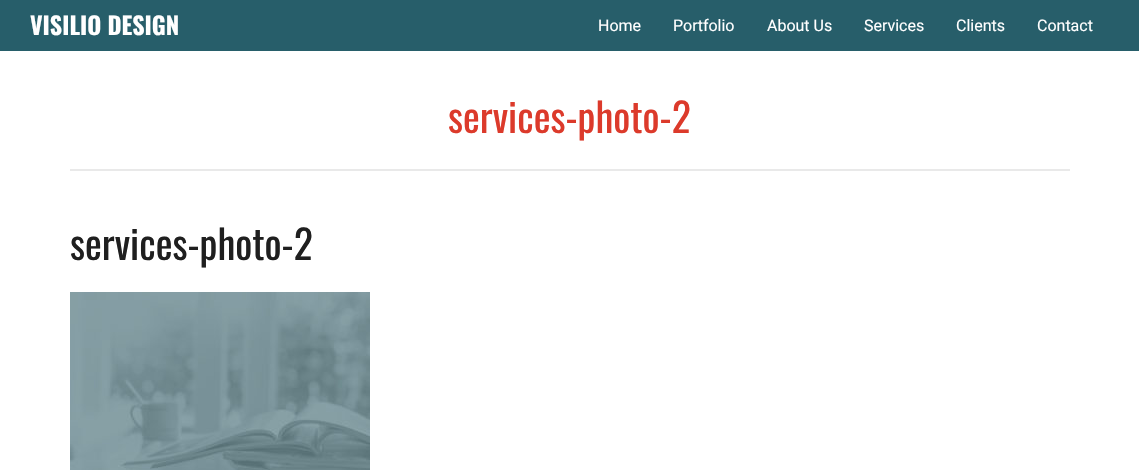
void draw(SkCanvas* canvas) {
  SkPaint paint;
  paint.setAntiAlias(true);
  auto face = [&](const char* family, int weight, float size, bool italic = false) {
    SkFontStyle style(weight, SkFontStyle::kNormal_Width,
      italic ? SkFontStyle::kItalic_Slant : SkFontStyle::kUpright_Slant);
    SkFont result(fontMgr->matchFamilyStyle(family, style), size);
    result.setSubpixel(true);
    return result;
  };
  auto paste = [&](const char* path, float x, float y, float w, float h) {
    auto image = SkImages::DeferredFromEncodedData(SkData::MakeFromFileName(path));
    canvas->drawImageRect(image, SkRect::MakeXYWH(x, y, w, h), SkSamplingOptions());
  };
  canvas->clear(0xffffffff);
  paint.setColor(0xff275e6a);
  canvas->drawRect(SkRect::MakeXYWH(0, 0, 1139, 51), paint);
  paint.setColor(0xffe9e9e9);
  canvas->drawRect(SkRect::MakeXYWH(70, 169, 1000, 2), paint);
  paste("img/1.png", 70, 292, 300, 178);
  auto f0 = face("Oswald", 700, 24);
  paint.setColor(0xffffffff);
  canvas->drawString("VISILIO DESIGN", 30, 35, f0, paint);
  auto f1 = face("Roboto", 400, 16);
  {
    const struct { const char* s; float x, y; } items[] = {
      {"Home", 598, 31},
      {"Portfolio", 673, 31},
      {"About Us", 767, 31},
      {"Services", 864, 31},
      {"Clients", 956, 31},
      {"Contact", 1037, 31},
    };
    for (auto [s, x, y] : items) {
      canvas->drawString(s, x, y, f1, paint);
    }
  }
  auto f2 = face("Oswald", 400, 40);
  paint.setColor(0xffdc3a2b);
  canvas->drawString("services-photo-2", 448, 133, f2, paint);
  paint.setColor(0xff1f1f1f);
  canvas->drawString("services-photo-2", 70, 260, f2, paint);
}
